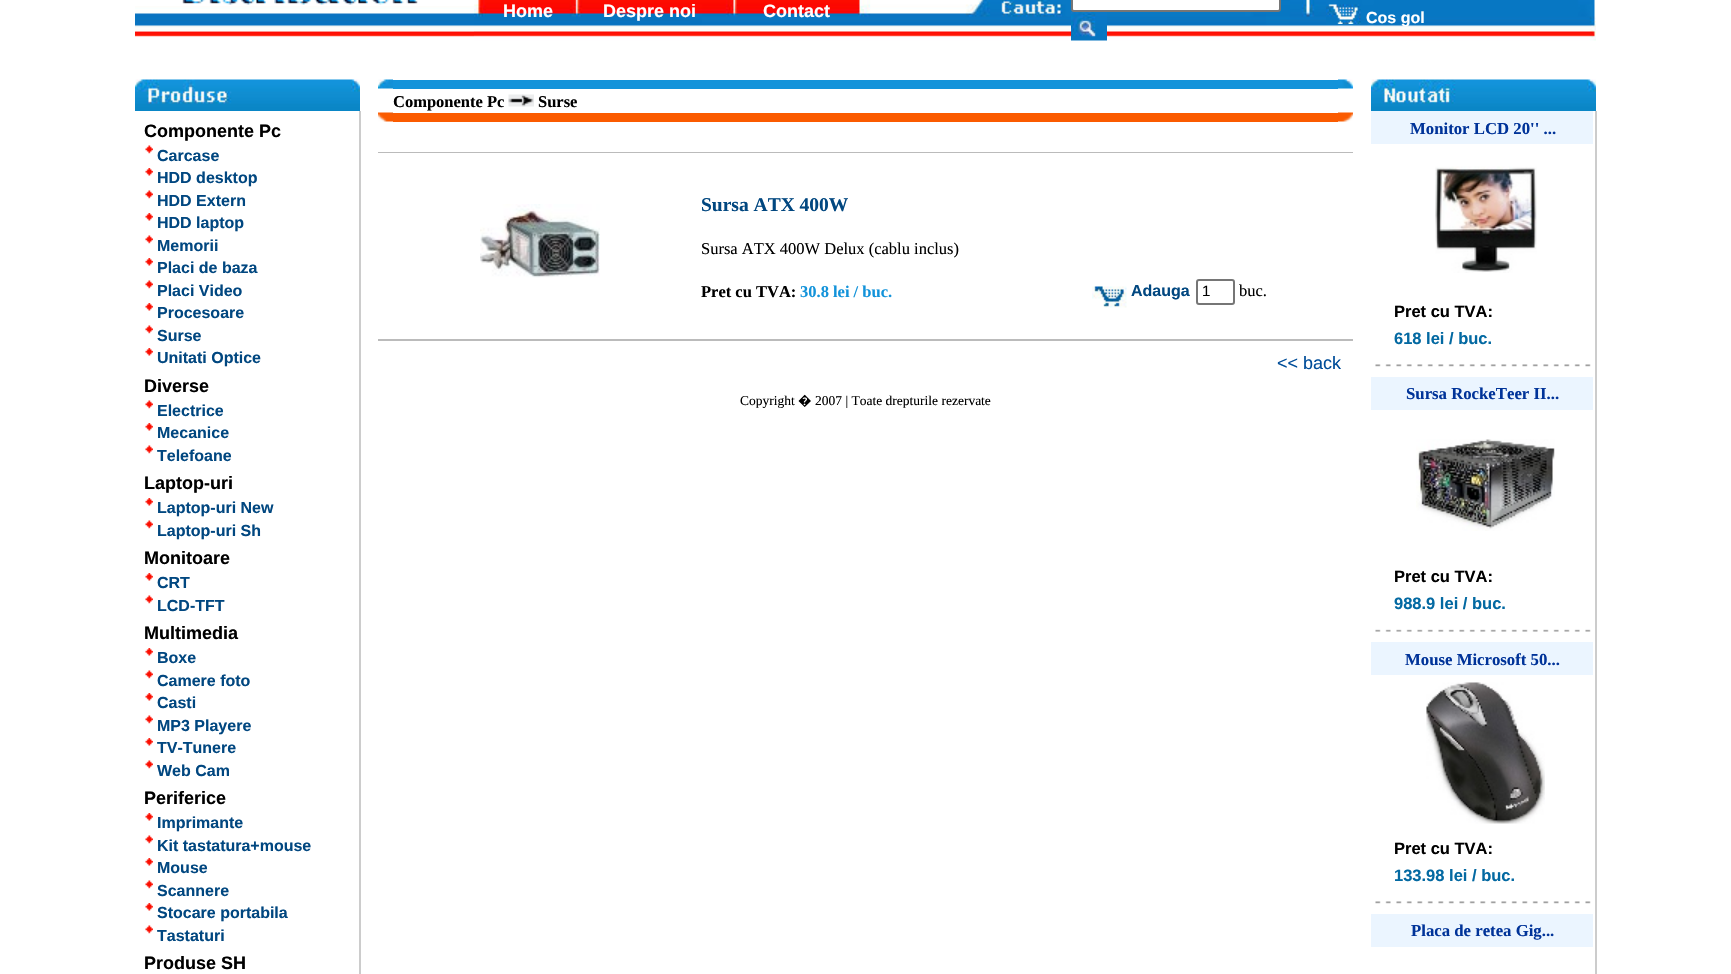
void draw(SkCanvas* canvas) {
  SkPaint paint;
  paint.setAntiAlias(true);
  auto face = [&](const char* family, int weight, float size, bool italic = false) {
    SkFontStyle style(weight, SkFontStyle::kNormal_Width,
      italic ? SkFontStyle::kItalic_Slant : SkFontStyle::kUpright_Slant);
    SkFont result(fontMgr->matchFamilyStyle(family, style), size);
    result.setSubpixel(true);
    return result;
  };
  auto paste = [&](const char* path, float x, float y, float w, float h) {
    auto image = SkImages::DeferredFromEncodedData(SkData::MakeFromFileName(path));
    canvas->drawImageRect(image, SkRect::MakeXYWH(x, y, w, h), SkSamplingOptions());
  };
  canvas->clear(0xffffffff);
  paste("img/1.png", 135, 6, 339, 31);
  paste("img/2.png", 182, 0, 236, 5);
  paste("img/3.png", 474, 0, 1122, 41);
  paint.setColor(0xffffffff);
  canvas->drawRoundRect(SkRect::MakeXYWH(1072, -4, 208, 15), 2, 2, paint);
  paint.setStroke(true);
  paint.setStrokeWidth(2);
  paint.setColor(0xff767676);
  canvas->drawRoundRect(SkRect::MakeXYWH(1072, -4, 208, 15), 2, 2, paint);
  paste("img/4.png", 1071, 12, 36, 29);
  paste("img/5.png", 1326, 4, 35, 20);
  paste("img/6.png", 135, 79, 225, 32);
  paste("img/7.png", 145, 145, 8, 9);
  paste("img/8.png", 145, 168, 8, 8);
  paste("img/7.png", 145, 190, 8, 9);
  paste("img/8.png", 145, 213, 8, 8);
  paste("img/7.png", 145, 235, 8, 9);
  paste("img/8.png", 145, 258, 8, 8);
  paste("img/7.png", 145, 280, 8, 9);
  paste("img/8.png", 145, 303, 8, 8);
  paste("img/7.png", 145, 325, 8, 9);
  paste("img/8.png", 145, 348, 8, 8);
  paste("img/7.png", 145, 400, 8, 9);
  paste("img/8.png", 145, 423, 8, 8);
  paste("img/7.png", 145, 445, 8, 9);
  paste("img/8.png", 145, 498, 8, 8);
  paste("img/7.png", 145, 520, 8, 9);
  paste("img/8.png", 145, 573, 8, 8);
  paste("img/7.png", 145, 595, 8, 9);
  paste("img/8.png", 145, 648, 8, 8);
  paste("img/7.png", 145, 670, 8, 9);
  paste("img/8.png", 145, 693, 8, 8);
  paste("img/7.png", 145, 715, 8, 9);
  paste("img/8.png", 145, 738, 8, 8);
  paste("img/7.png", 145, 760, 8, 9);
  paste("img/8.png", 145, 813, 8, 8);
  paste("img/7.png", 145, 835, 8, 9);
  paste("img/8.png", 145, 858, 8, 8);
  paste("img/7.png", 145, 880, 8, 9);
  paste("img/8.png", 145, 903, 8, 8);
  paste("img/7.png", 145, 925, 8, 9);
  paint.setStroke(false);
  paint.setColor(0xffcccccc);
  canvas->drawRect(SkRect::MakeXYWH(359, 111, 2, 863), paint);
  paste("img/9.png", 378, 79, 15, 10);
  paint.setColor(0xff1393da);
  canvas->drawRect(SkRect::MakeXYWH(393, 80, 945, 9), paint);
  paste("img/10.png", 1338, 79, 15, 10);
  paste("img/11.png", 508, 94, 26, 13);
  paste("img/12.png", 378, 112, 15, 10);
  paint.setColor(0xfffb5b00);
  canvas->drawRect(SkRect::MakeXYWH(393, 113, 945, 9), paint);
  paste("img/13.png", 1338, 112, 15, 10);
  paint.setColor(0xffbbbbbb);
  canvas->drawRect(SkRect::MakeXYWH(378, 152, 975, 1), paint);
  paste("img/14.png", 480, 204, 120, 74);
  paste("img/15.png", 1092, 286, 35, 22);
  paint.setStroke(true);
  paint.setColor(0xff767676);
  canvas->drawRoundRect(SkRect::MakeXYWH(1197, 280, 37, 24), 2, 2, paint);
  paint.setStroke(false);
  paint.setColor(0xffbbbbbb);
  canvas->drawRect(SkRect::MakeXYWH(378, 339, 975, 2), paint);
  paste("img/16.png", 1371, 79, 225, 32);
  paint.setColor(0xffebf5ff);
  canvas->drawRect(SkRect::MakeXYWH(1371, 111, 222, 33), paint);
  paste("img/17.png", 1435, 166, 102, 107);
  paste("img/18.png", 1375, 364, 216, 3);
  canvas->drawRect(SkRect::MakeXYWH(1371, 377, 222, 33), paint);
  paste("img/19.png", 1416, 439, 139, 92);
  paste("img/20.png", 1375, 629, 216, 3);
  canvas->drawRect(SkRect::MakeXYWH(1371, 642, 222, 33), paint);
  paste("img/21.png", 1426, 682, 119, 142);
  paste("img/18.png", 1375, 901, 216, 3);
  canvas->drawRect(SkRect::MakeXYWH(1371, 914, 222, 33), paint);
  paint.setColor(0xffcccccc);
  canvas->drawRect(SkRect::MakeXYWH(1595, 111, 2, 863), paint);
  auto f0 = face("Liberation Sans", 700, 18);
  paint.setColor(0xffffffff);
  {
    const struct { const char* s; float x, y; } items[] = {
      {"Home", 503, 17},
      {"Despre noi", 603, 17},
      {"Contact", 763, 17},
    };
    for (auto [s, x, y] : items) {
      canvas->drawString(s, x, y, f0, paint);
    }
  }
  auto f1 = face("Liberation Sans", 700, 16);
  canvas->drawString("Cos gol", 1366, 23, f1, paint);
  paint.setColor(0xff000000);
  canvas->drawString("Componente Pc", 144, 137, f0, paint);
  paint.setColor(0xff014780);
  {
    const struct { const char* s; float x, y; } items[] = {
      {"Carcase", 157, 161},
      {"HDD desktop", 157, 183},
      {"HDD Extern", 157, 206},
      {"HDD laptop", 157, 228},
      {"Memorii", 157, 251},
      {"Placi de baza", 157, 273},
      {"Placi Video", 157, 296},
      {"Procesoare", 157, 318},
      {"Surse", 157, 341},
      {"Unitati Optice", 157, 363},
    };
    for (auto [s, x, y] : items) {
      canvas->drawString(s, x, y, f1, paint);
    }
  }
  paint.setColor(0xff000000);
  canvas->drawString("Diverse", 144, 392, f0, paint);
  paint.setColor(0xff014780);
  {
    const struct { const char* s; float x, y; } items[] = {
      {"Electrice", 157, 416},
      {"Mecanice", 157, 438},
      {"Telefoane", 157, 461},
    };
    for (auto [s, x, y] : items) {
      canvas->drawString(s, x, y, f1, paint);
    }
  }
  paint.setColor(0xff000000);
  canvas->drawString("Laptop-uri", 144, 489, f0, paint);
  paint.setColor(0xff014780);
  canvas->drawString("Laptop-uri New", 157, 513, f1, paint);
  canvas->drawString("Laptop-uri Sh", 157, 536, f1, paint);
  paint.setColor(0xff000000);
  canvas->drawString("Monitoare", 144, 564, f0, paint);
  paint.setColor(0xff014780);
  canvas->drawString("CRT", 157, 588, f1, paint);
  canvas->drawString("LCD-TFT", 157, 611, f1, paint);
  paint.setColor(0xff000000);
  canvas->drawString("Multimedia", 144, 639, f0, paint);
  paint.setColor(0xff014780);
  {
    const struct { const char* s; float x, y; } items[] = {
      {"Boxe", 157, 663},
      {"Camere foto", 157, 686},
      {"Casti", 157, 708},
      {"MP3 Playere", 157, 731},
      {"TV-Tunere", 157, 753},
      {"Web Cam", 157, 776},
    };
    for (auto [s, x, y] : items) {
      canvas->drawString(s, x, y, f1, paint);
    }
  }
  paint.setColor(0xff000000);
  canvas->drawString("Periferice", 144, 804, f0, paint);
  paint.setColor(0xff014780);
  {
    const struct { const char* s; float x, y; } items[] = {
      {"Imprimante", 157, 828},
      {"Kit tastatura+mouse", 157, 851},
      {"Mouse", 157, 873},
      {"Scannere", 157, 896},
      {"Stocare portabila", 157, 918},
      {"Tastaturi", 157, 941},
    };
    for (auto [s, x, y] : items) {
      canvas->drawString(s, x, y, f1, paint);
    }
  }
  paint.setColor(0xff000000);
  canvas->drawString("Produse SH", 144, 969, f0, paint);
  auto f2 = face("Liberation Serif", 700, 16.5f);
  canvas->drawString("Componente Pc", 393, 107, f2, paint);
  canvas->drawString("Surse", 538, 107, f2, paint);
  auto f3 = face("Liberation Serif", 700, 19.5f);
  paint.setColor(0xff014780);
  canvas->drawString("Sursa ATX 400W", 701, 211, f3, paint);
  auto f4 = face("Liberation Serif", 400, 16.5f);
  paint.setColor(0xff000000);
  canvas->drawString("Sursa ATX 400W Delux (cablu inclus)", 701, 254, f4, paint);
  canvas->drawString("Pret cu TVA:", 701, 297, f2, paint);
  paint.setColor(0xff1393da);
  canvas->drawString("30.8 lei / buc.", 800, 297, f2, paint);
  paint.setColor(0xff014780);
  canvas->drawString("Adauga", 1131, 296, f1, paint);
  auto f5 = face("Liberation Sans", 400, 15);
  paint.setColor(0xff000000);
  canvas->drawString("1", 1202, 296, f5, paint);
  canvas->drawString("buc.", 1239, 296, f4, paint);
  auto f6 = face("Liberation Sans", 400, 18);
  paint.setColor(0xff014e9a);
  canvas->drawString("<< back", 1277, 369, f6, paint);
  auto f7 = face("Liberation Serif", 400, 13.5f);
  paint.setColor(0xff000000);
  canvas->drawString("Copyright", 740, 405, f7, paint);
  auto f8 = face("Noto Sans", 400, 13.5f);
  canvas->drawString("�", 798, 405, f8, paint);
  canvas->drawString("2007 | Toate drepturile rezervate", 815, 405, f7, paint);
  auto f9 = face("Liberation Serif", 700, 16.75f);
  paint.setColor(0xff003399);
  canvas->drawString("Monitor LCD 20'' ...", 1410, 134, f9, paint);
  auto f10 = face("Liberation Sans", 700, 16.5f);
  paint.setColor(0xff000000);
  canvas->drawString("Pret cu TVA:", 1394, 317, f10, paint);
  paint.setColor(0xff0369a2);
  canvas->drawString("618 lei / buc.", 1394, 344, f10, paint);
  paint.setColor(0xff003399);
  canvas->drawString("Sursa RockeTeer II...", 1406, 399, f9, paint);
  paint.setColor(0xff000000);
  canvas->drawString("Pret cu TVA:", 1394, 582, f10, paint);
  paint.setColor(0xff0369a2);
  canvas->drawString("988.9 lei / buc.", 1394, 609, f10, paint);
  paint.setColor(0xff003399);
  canvas->drawString("Mouse Microsoft 50...", 1405, 665, f9, paint);
  paint.setColor(0xff000000);
  canvas->drawString("Pret cu TVA:", 1394, 854, f10, paint);
  paint.setColor(0xff0369a2);
  canvas->drawString("133.98 lei / buc.", 1394, 881, f10, paint);
  paint.setColor(0xff003399);
  canvas->drawString("Placa de retea Gig...", 1411, 936, f9, paint);
}
